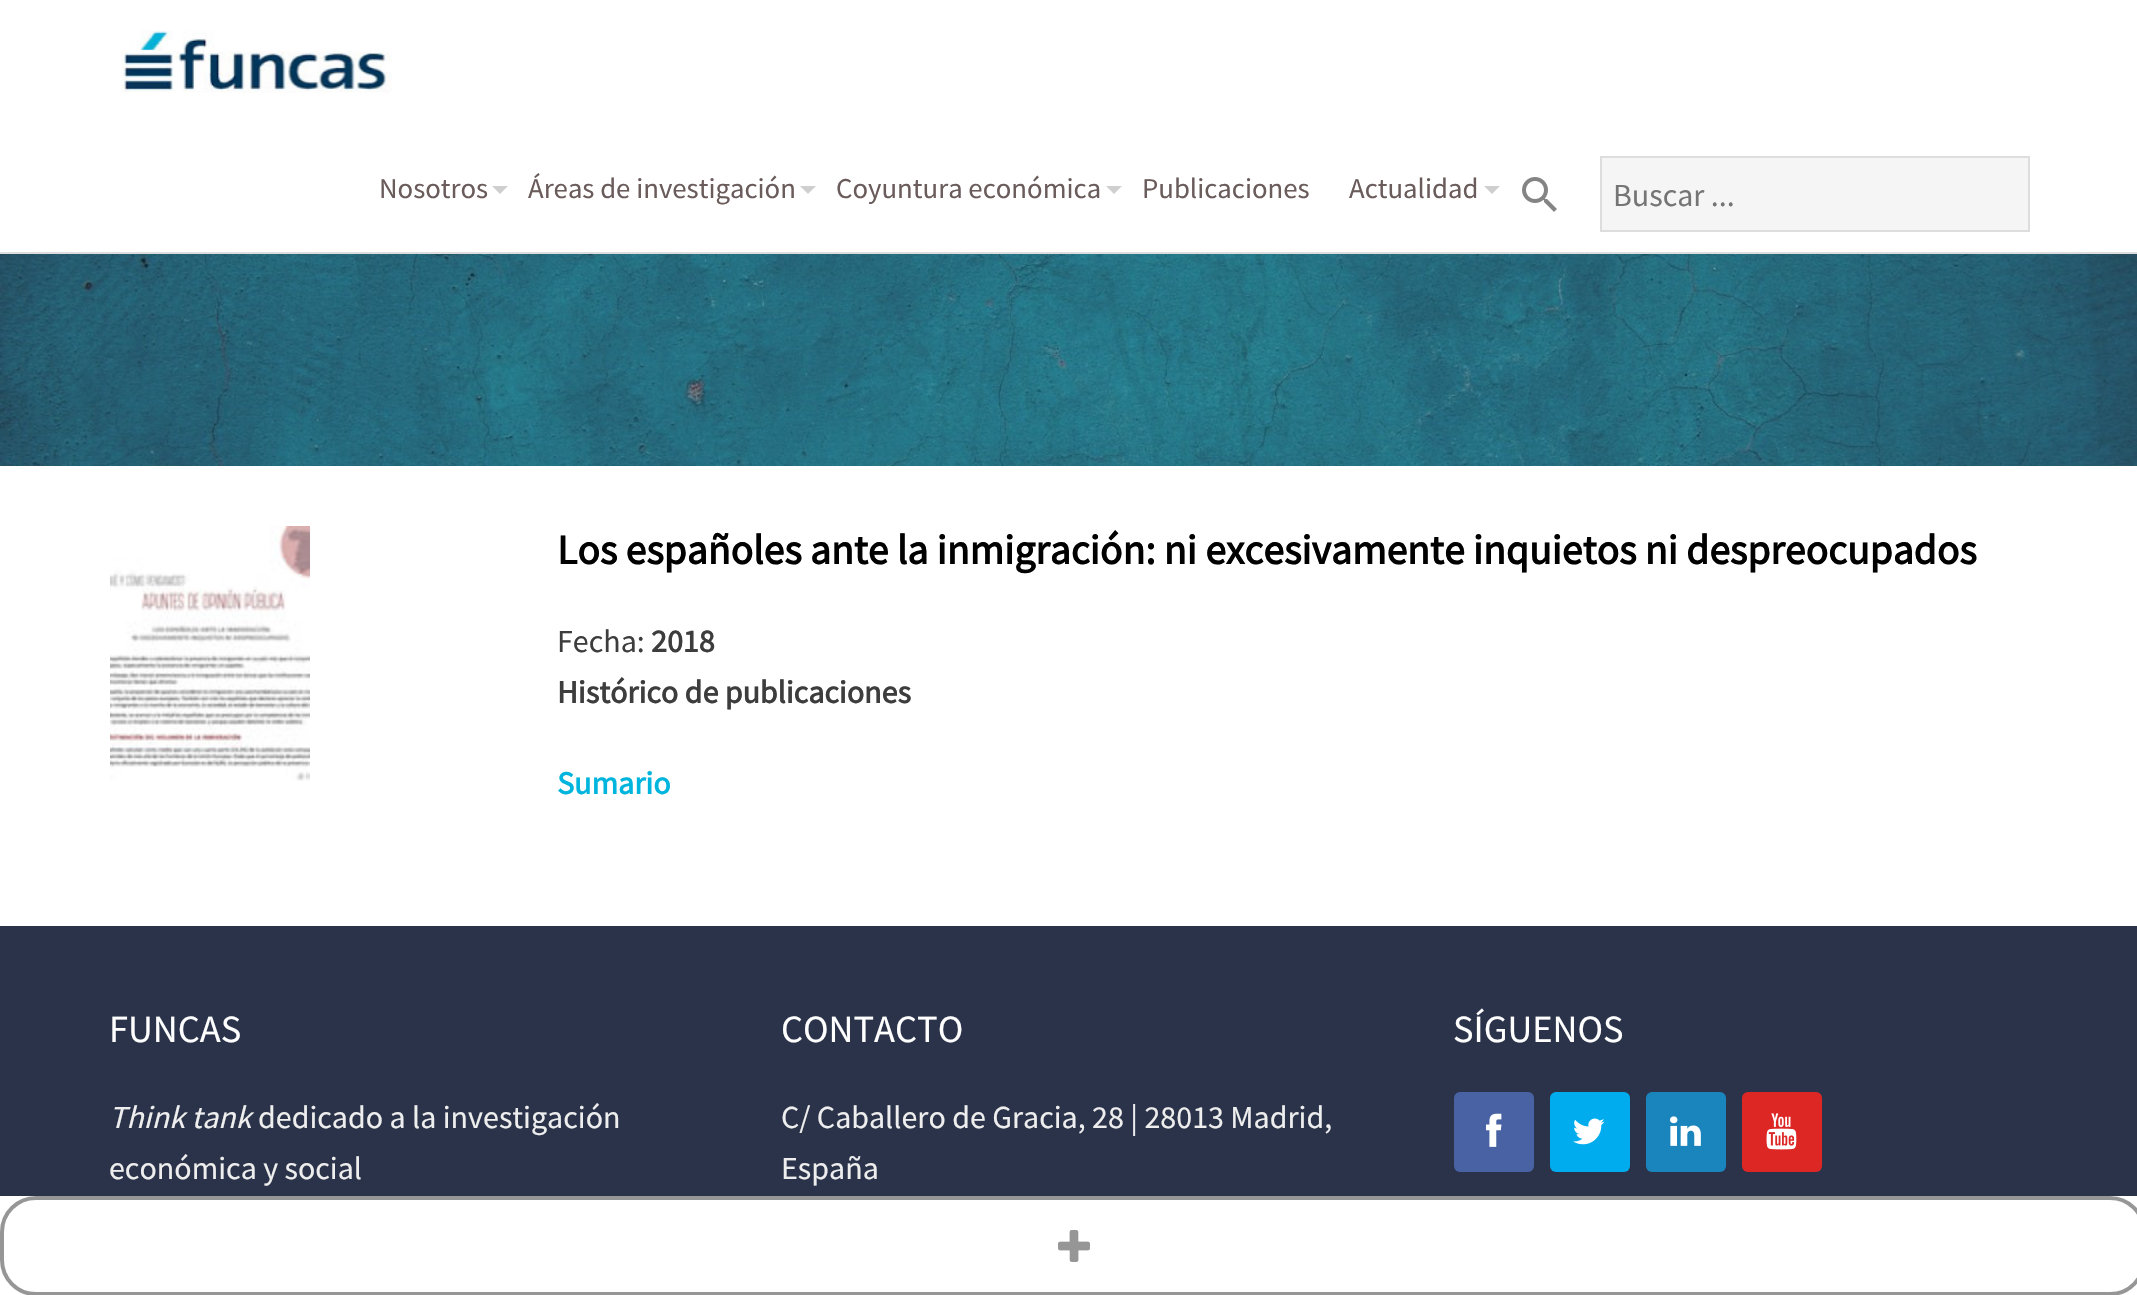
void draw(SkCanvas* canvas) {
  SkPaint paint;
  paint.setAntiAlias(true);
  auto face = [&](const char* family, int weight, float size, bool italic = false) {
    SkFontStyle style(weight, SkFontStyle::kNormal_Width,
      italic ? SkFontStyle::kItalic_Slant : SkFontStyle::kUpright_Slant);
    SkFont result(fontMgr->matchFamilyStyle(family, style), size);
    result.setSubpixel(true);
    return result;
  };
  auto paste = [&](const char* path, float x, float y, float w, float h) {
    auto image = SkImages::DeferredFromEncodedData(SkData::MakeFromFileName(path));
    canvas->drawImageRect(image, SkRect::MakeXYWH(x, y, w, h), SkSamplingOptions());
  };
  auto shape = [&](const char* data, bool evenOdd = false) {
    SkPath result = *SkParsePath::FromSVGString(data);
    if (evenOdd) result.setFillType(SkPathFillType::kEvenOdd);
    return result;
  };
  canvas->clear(0xffffffff);
  paint.setColor(0xffdddddd);
  canvas->drawRect(SkRect::MakeXYWH(0, 252, 2137, 2), paint);
  paste("img/1.png", 121, 30, 271, 63);
  paint.setColor(0xffcfcfcf);
  canvas->drawPath(shape("M492 186H508L500 194Z"), paint);
  canvas->drawPath(shape("M800 186H816L808 194Z"), paint);
  canvas->drawPath(shape("M1106 186H1122L1114 194Z"), paint);
  canvas->drawPath(shape("M1484 186H1500L1492 194Z"), paint);
  paste("img/2.png", 1522, 177, 35, 35);
  paint.setColor(0xfff5f5f5);
  canvas->drawRect(SkRect::MakeXYWH(1601, 157, 428, 74), paint);
  paint.setStroke(true);
  paint.setStrokeWidth(2);
  paint.setColor(0xffdddddd);
  canvas->drawRect(SkRect::MakeXYWH(1601, 157, 428, 74), paint);
  paste("img/3.png", 0, 254, 2137, 212);
  paste("img/4.png", 110, 526, 200, 255);
  paint.setStroke(false);
  paint.setColor(0xff2a3349);
  canvas->drawRect(SkRect::MakeXYWH(0, 926, 2137, 270), paint);
  paint.setColor(0xff4862a3);
  canvas->drawRoundRect(SkRect::MakeXYWH(1454, 1092, 80, 80), 6, 6, paint);
  paste("img/5.png", 1486, 1113, 16, 34);
  paint.setColor(0xff00acee);
  canvas->drawRoundRect(SkRect::MakeXYWH(1550, 1092, 80, 80), 6, 6, paint);
  paste("img/6.png", 1573, 1118, 32, 27);
  paint.setColor(0xff1a85bc);
  canvas->drawRoundRect(SkRect::MakeXYWH(1646, 1092, 80, 80), 6, 6, paint);
  paste("img/7.png", 1670, 1116, 31, 30);
  paint.setColor(0xffdc2725);
  canvas->drawRoundRect(SkRect::MakeXYWH(1742, 1092, 80, 80), 6, 6, paint);
  paste("img/8.png", 1766, 1113, 31, 37);
  paint.setStroke(true);
  paint.setStrokeWidth(4);
  paint.setColor(0xff969696);
  canvas->drawRoundRect(SkRect::MakeXYWH(2, 1198, 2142, 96), 34, 34, paint);
  paste("img/9.png", 1058, 1230, 32, 32);
  auto f0 = face("Source Sans Pro", 400, 28.75f);
  paint.setStroke(false);
  paint.setColor(0xff6b5c5c);
  {
    const struct { const char* s; float x, y; } items[] = {
      {"Nosotros", 379, 198},
      {"Áreas de investigación", 528, 198},
      {"Coyuntura económica", 836, 198},
      {"Publicaciones", 1142, 198},
      {"Actualidad", 1349, 198},
    };
    for (auto [s, x, y] : items) {
      canvas->drawString(s, x, y, f0, paint);
    }
  }
  auto f1 = face("Source Sans Pro", 400, 32);
  paint.setColor(0xff757575);
  canvas->drawString("Buscar ...", 1613, 206, f1, paint);
  auto f2 = face("Source Sans Pro", 700, 41.6f);
  paint.setColor(0xff000000);
  canvas->drawString("Los españoles ante la inmigración: ni excesivamente inquietos ni despreocupados", 557, 564, f2, paint);
  paint.setColor(0xff3d3d3d);
  canvas->drawString("Fecha:", 557, 652, f1, paint);
  auto f3 = face("Source Sans Pro", 700, 32);
  canvas->drawString("2018", 651, 652, f3, paint);
  canvas->drawString("Histórico de publicaciones", 557, 703, f3, paint);
  paint.setColor(0xff00b5dd);
  canvas->drawString("Sumario", 557, 794, f3, paint);
  auto f4 = face("Source Sans Pro", 400, 38.5f);
  paint.setColor(0xffffffff);
  canvas->drawString("FUNCAS", 109, 1042, f4, paint);
  auto f5 = face("Source Sans Pro", 400, 32, true);
  paint.setColor(0xffeeeeee);
  canvas->drawString("Think tank", 109, 1128, f5, paint);
  canvas->drawString("dedicado a la investigación", 258, 1128, f1, paint);
  canvas->drawString("económica y social", 109, 1179, f1, paint);
  paint.setColor(0xffffffff);
  canvas->drawString("CONTACTO", 781, 1042, f4, paint);
  paint.setColor(0xffeeeeee);
  canvas->drawString("C/ Caballero de Gracia, 28 | 28013 Madrid,", 781, 1128, f1, paint);
  canvas->drawString("España", 781, 1179, f1, paint);
  paint.setColor(0xffffffff);
  canvas->drawString("SÍGUENOS", 1453, 1042, f4, paint);
}
